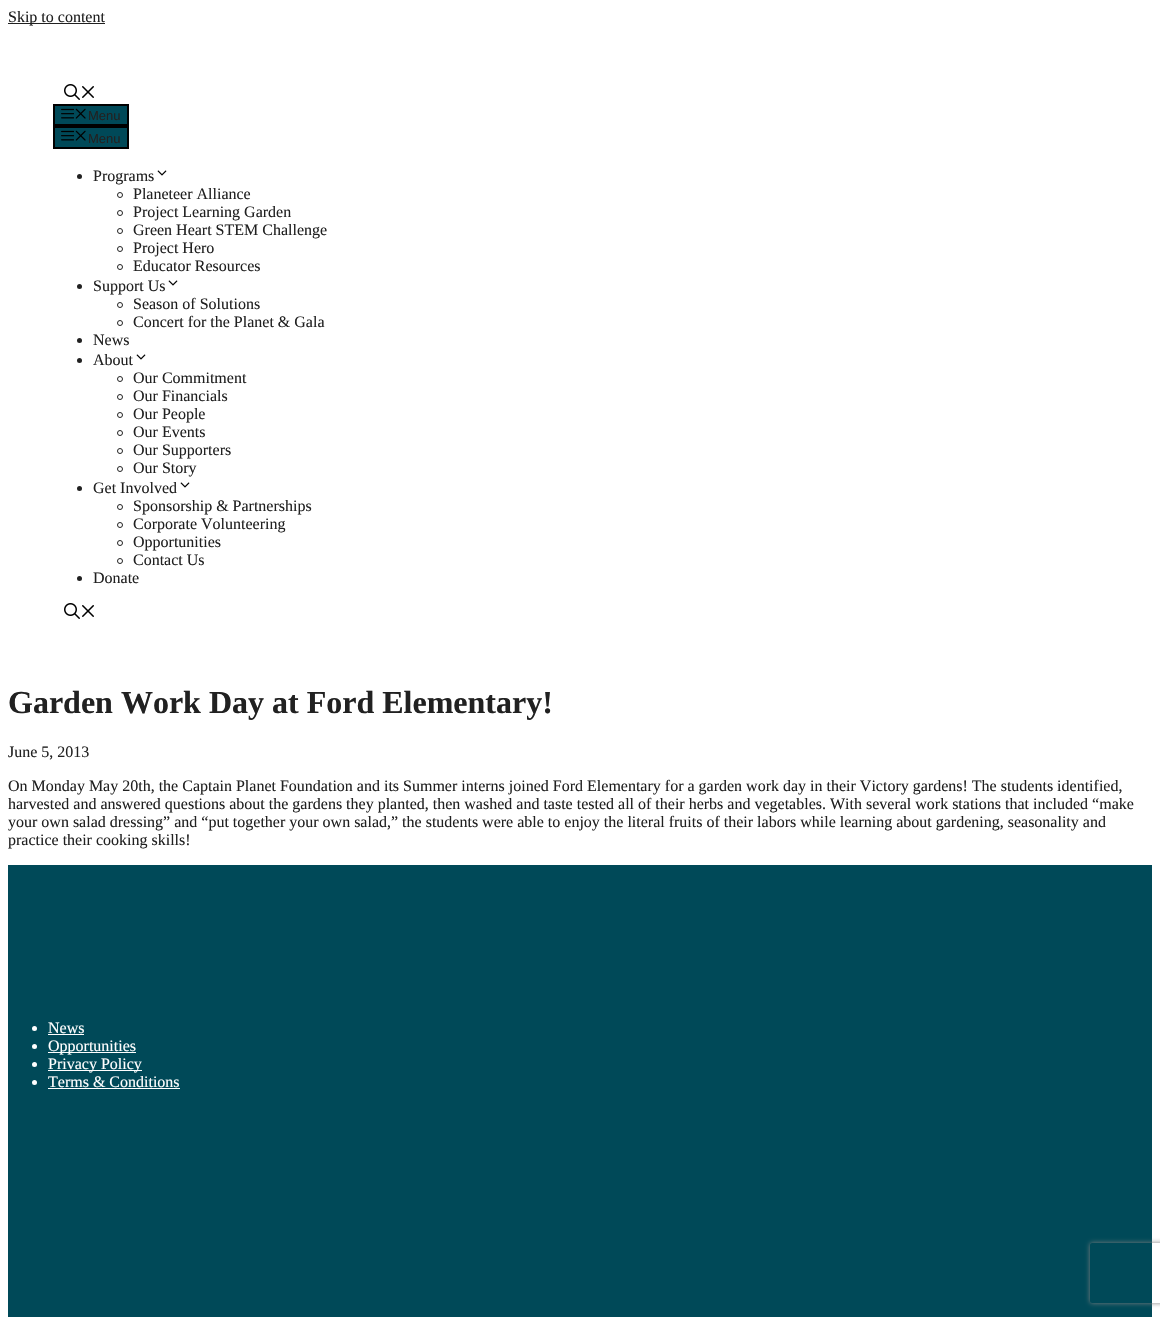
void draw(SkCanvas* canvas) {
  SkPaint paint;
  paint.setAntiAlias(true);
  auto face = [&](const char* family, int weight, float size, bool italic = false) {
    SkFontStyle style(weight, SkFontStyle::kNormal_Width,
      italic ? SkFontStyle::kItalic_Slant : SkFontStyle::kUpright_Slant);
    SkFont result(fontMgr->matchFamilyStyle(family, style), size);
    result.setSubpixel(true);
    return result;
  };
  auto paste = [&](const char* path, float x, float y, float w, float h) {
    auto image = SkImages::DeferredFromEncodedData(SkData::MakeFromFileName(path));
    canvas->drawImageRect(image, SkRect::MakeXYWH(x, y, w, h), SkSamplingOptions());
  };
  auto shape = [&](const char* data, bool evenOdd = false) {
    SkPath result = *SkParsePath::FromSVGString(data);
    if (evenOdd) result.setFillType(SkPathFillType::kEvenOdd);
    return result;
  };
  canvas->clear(0xffffffff);
  paint.setColor(0xff212121);
  canvas->drawRect(SkRect::MakeXYWH(8, 23, 97, 1), paint);
  paste("img/1.png", 64, 84, 16, 16);
  paste("img/2.png", 82, 86, 12, 12);
  paint.setColor(0xff004958);
  canvas->drawRect(SkRect::MakeXYWH(54, 105, 74, 20), paint);
  paint.setStroke(true);
  paint.setStrokeWidth(2);
  paint.setColor(0xff000000);
  canvas->drawRect(SkRect::MakeXYWH(54, 105, 74, 20), paint);
  paste("img/3.png", 61, 108, 13, 11);
  paste("img/4.png", 75, 108, 11, 11);
  paint.setStroke(false);
  paint.setColor(0xff004958);
  canvas->drawRect(SkRect::MakeXYWH(54, 127, 74, 21), paint);
  paint.setStroke(true);
  paint.setColor(0xff000000);
  canvas->drawRect(SkRect::MakeXYWH(54, 127, 74, 21), paint);
  paste("img/3.png", 61, 130, 13, 11);
  paste("img/4.png", 75, 130, 11, 11);
  paste("img/5.png", 157, 170, 10, 6);
  paint.setStroke(false);
  paint.setColor(0xff212121);
  canvas->drawCircle(79.5f, 176.5f, 2.5f, paint);
  paint.setStroke(true);
  paint.setStrokeWidth(1);
  canvas->drawCircle(120, 195, 2.5f, paint);
  canvas->drawCircle(120, 213, 2.5f, paint);
  canvas->drawCircle(120, 231, 2.5f, paint);
  canvas->drawCircle(120, 249, 2.5f, paint);
  canvas->drawCircle(120, 267, 2.5f, paint);
  paste("img/5.png", 168, 280, 10, 6);
  paint.setStroke(false);
  canvas->drawCircle(79.5f, 286.5f, 2.5f, paint);
  paint.setStroke(true);
  canvas->drawCircle(120, 305, 2.5f, paint);
  canvas->drawCircle(120, 323, 2.5f, paint);
  paint.setStroke(false);
  canvas->drawCircle(79.5f, 340.5f, 2.5f, paint);
  paste("img/5.png", 136, 354, 10, 6);
  canvas->drawCircle(79.5f, 360.5f, 2.5f, paint);
  paint.setStroke(true);
  canvas->drawCircle(120, 379, 2.5f, paint);
  canvas->drawCircle(120, 397, 2.5f, paint);
  canvas->drawCircle(120, 415, 2.5f, paint);
  canvas->drawCircle(120, 433, 2.5f, paint);
  canvas->drawCircle(120, 451, 2.5f, paint);
  canvas->drawCircle(120, 469, 2.5f, paint);
  paste("img/5.png", 180, 482, 10, 6);
  paint.setStroke(false);
  canvas->drawCircle(79.5f, 488.5f, 2.5f, paint);
  paint.setStroke(true);
  canvas->drawCircle(120, 507, 2.5f, paint);
  canvas->drawCircle(120, 525, 2.5f, paint);
  canvas->drawCircle(120, 543, 2.5f, paint);
  canvas->drawCircle(120, 561, 2.5f, paint);
  paint.setStroke(false);
  canvas->drawCircle(79.5f, 578.5f, 2.5f, paint);
  paste("img/1.png", 64, 603, 16, 16);
  paste("img/2.png", 82, 605, 12, 12);
  paint.setColor(0xff004958);
  canvas->drawRect(SkRect::MakeXYWH(8, 865, 1144, 452), paint);
  paint.setColor(0xffffffff);
  canvas->drawCircle(34.5f, 1028.5f, 2.5f, paint);
  canvas->drawRect(SkRect::MakeXYWH(48, 1034, 36, 1), paint);
  canvas->drawCircle(34.5f, 1046.5f, 2.5f, paint);
  canvas->drawRect(SkRect::MakeXYWH(48, 1052, 88, 1), paint);
  canvas->drawCircle(34.5f, 1064.5f, 2.5f, paint);
  canvas->drawRect(SkRect::MakeXYWH(48, 1070, 94, 1), paint);
  canvas->drawCircle(34.5f, 1082.5f, 2.5f, paint);
  canvas->drawRect(SkRect::MakeXYWH(48, 1088, 132, 1), paint);
  canvas->save();
  canvas->clipPath(shape("M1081 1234H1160V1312H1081ZM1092 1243H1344C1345 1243 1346 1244 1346 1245V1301C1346 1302 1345 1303 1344 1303H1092C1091 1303 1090 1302 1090 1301V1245C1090 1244 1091 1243 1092 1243Z", true), true);
  paint.setColor(0xff808080);
  paint.setMaskFilter(SkMaskFilter::MakeBlur(kNormal_SkBlurStyle, 2.5f));
  canvas->drawRoundRect(SkRect::MakeXYWH(1090, 1243, 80, 60), 2, 2, paint);
  paint.setMaskFilter(nullptr);
  canvas->restore();
  auto f0 = face("Liberation Serif", 400, 16);
  paint.setColor(0xff212121);
  canvas->drawString("Skip to content", 8, 22, f0, paint);
  auto f1 = face("Liberation Sans", 400, 13);
  canvas->drawString("Menu", 88, 120, f1, paint);
  canvas->drawString("Menu", 88, 143, f1, paint);
  {
    const struct { const char* s; float x, y; } items[] = {
      {"Programs", 93, 181},
      {"Planeteer Alliance", 133, 199},
      {"Project Learning Garden", 133, 217},
      {"Green Heart STEM Challenge", 133, 235},
      {"Project Hero", 133, 253},
      {"Educator Resources", 133, 271},
      {"Support Us", 93, 291},
      {"Season of Solutions", 133, 309},
      {"Concert for the Planet & Gala", 133, 327},
      {"News", 93, 345},
      {"About", 93, 365},
      {"Our Commitment", 133, 383},
      {"Our Financials", 133, 401},
      {"Our People", 133, 419},
      {"Our Events", 133, 437},
      {"Our Supporters", 133, 455},
      {"Our Story", 133, 473},
      {"Get Involved", 93, 493},
      {"Sponsorship & Partnerships", 133, 511},
      {"Corporate Volunteering", 133, 529},
      {"Opportunities", 133, 547},
      {"Contact Us", 133, 565},
      {"Donate", 93, 583},
    };
    for (auto [s, x, y] : items) {
      canvas->drawString(s, x, y, f0, paint);
    }
  }
  auto f2 = face("Liberation Serif", 700, 32);
  canvas->drawString("Garden Work Day at Ford Elementary!", 8, 713, f2, paint);
  {
    const struct { const char* s; float x, y; } items[] = {
      {"June 5, 2013", 8, 757},
      {"On Monday May 20th, the Captain Planet Foundation and its Summer interns joined Ford Elementary for a garden work day in their Victory gardens! The students identified,", 8, 791},
      {"harvested and answered questions about the gardens they planted, then washed and taste tested all of their herbs and vegetables. With several work stations that included “make", 8, 809},
      {"your own salad dressing” and “put together your own salad,” the students were able to enjoy the literal fruits of their labors while learning about gardening, seasonality and", 8, 827},
      {"practice their cooking skills!", 8, 845},
    };
    for (auto [s, x, y] : items) {
      canvas->drawString(s, x, y, f0, paint);
    }
  }
  paint.setColor(0xffffffff);
  {
    const struct { const char* s; float x, y; } items[] = {
      {"News", 48, 1033},
      {"Opportunities", 48, 1051},
      {"Privacy Policy", 48, 1069},
      {"Terms & Conditions", 48, 1087},
    };
    for (auto [s, x, y] : items) {
      canvas->drawString(s, x, y, f0, paint);
    }
  }
}
